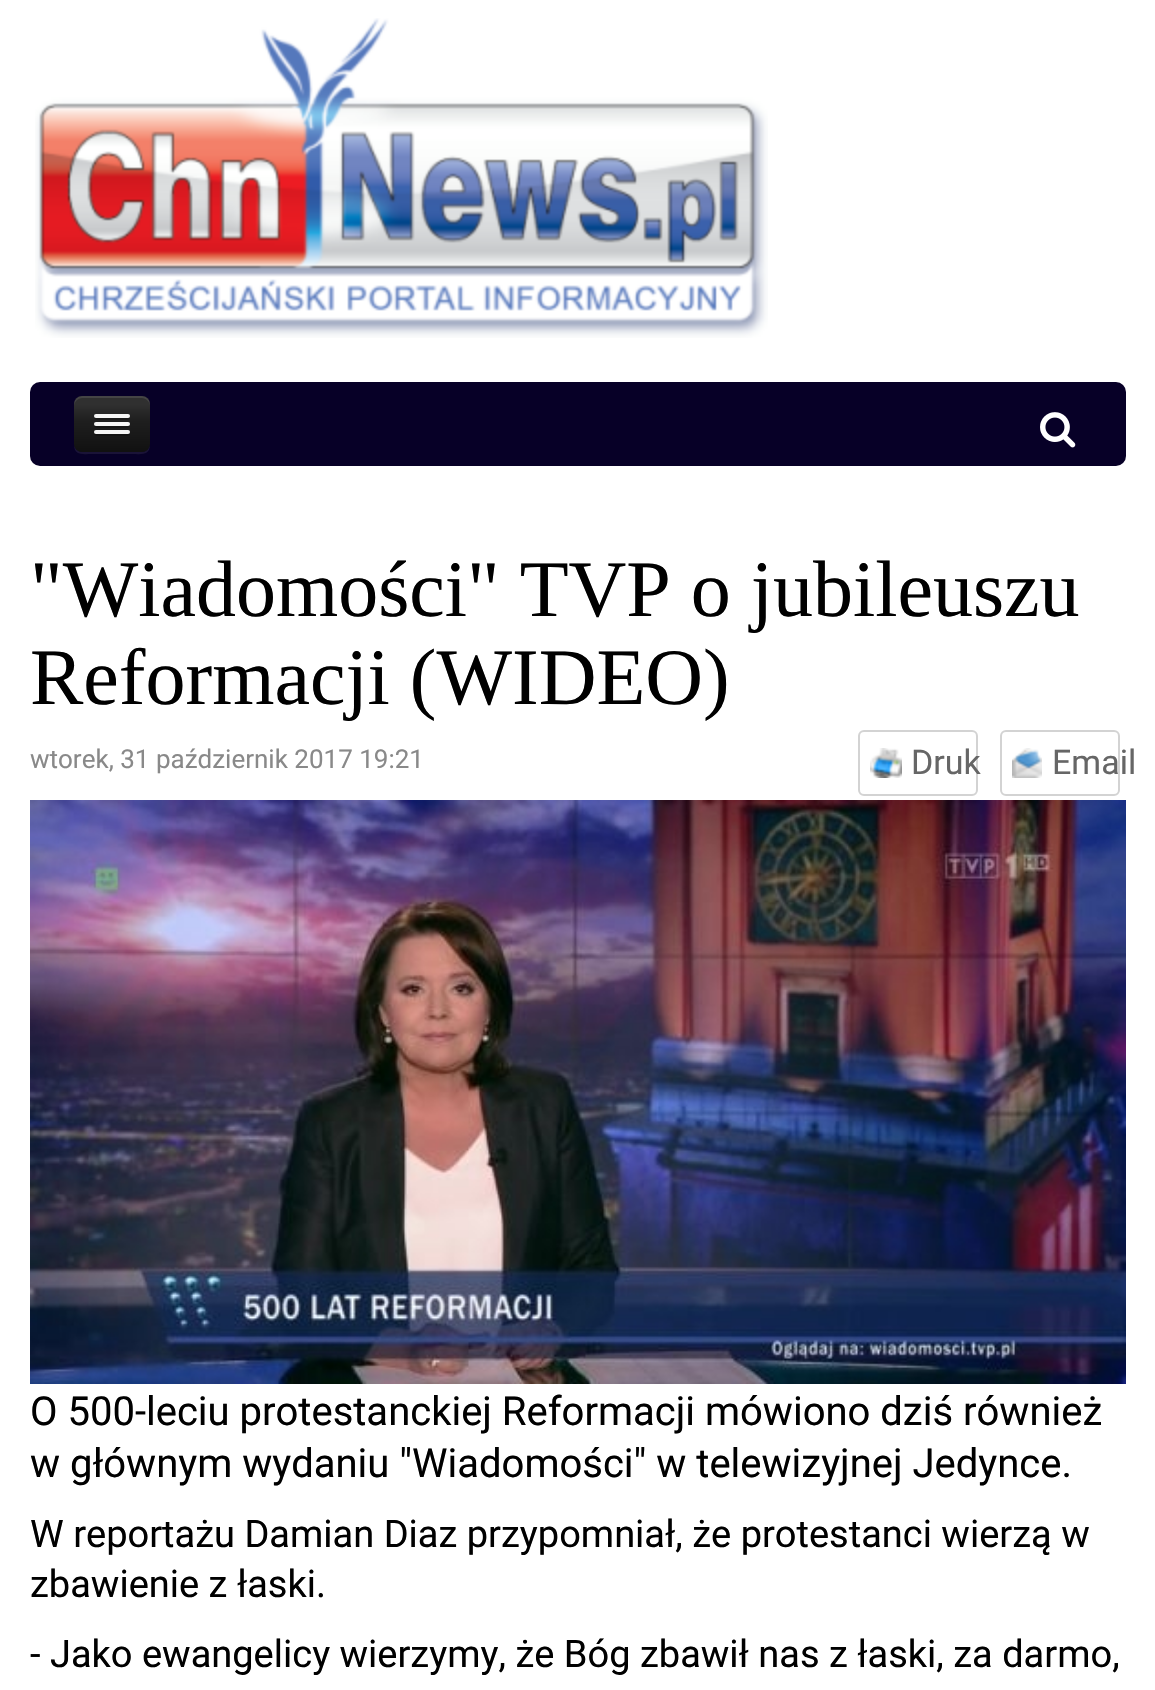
void draw(SkCanvas* canvas) {
  SkPaint paint;
  paint.setAntiAlias(true);
  auto face = [&](const char* family, int weight, float size, bool italic = false) {
    SkFontStyle style(weight, SkFontStyle::kNormal_Width,
      italic ? SkFontStyle::kItalic_Slant : SkFontStyle::kUpright_Slant);
    SkFont result(fontMgr->matchFamilyStyle(family, style), size);
    result.setSubpixel(true);
    return result;
  };
  auto paste = [&](const char* path, float x, float y, float w, float h) {
    auto image = SkImages::DeferredFromEncodedData(SkData::MakeFromFileName(path));
    canvas->drawImageRect(image, SkRect::MakeXYWH(x, y, w, h), SkSamplingOptions());
  };
  auto shape = [&](const char* data, bool evenOdd = false) {
    SkPath result = *SkParsePath::FromSVGString(data);
    if (evenOdd) result.setFillType(SkPathFillType::kEvenOdd);
    return result;
  };
  canvas->clear(0xffffffff);
  paste("img/1.png", 35, 18, 733, 320);
  paint.setColor(0xff070027);
  canvas->drawRoundRect(SkRect::MakeXYWH(30, 382, 1096, 84), 10, 10, paint);
  paint.setColor(0xff1a1337);
  canvas->drawPath(shape("M74 444C74 456 83 454 92 454H132C141 454 150 456 150 444C150 448 146 452 142 452H82C78 452 74 448 74 444Z"), paint);
  {
    const SkColor colors[] = {0xff111111, 0xff1f1f1f, 0xff303030};
    const float stops[] = {0.01f, 0.57f, 0.85f};
    const SkPoint ends[] = {{112, 452}, {112, 396}};
    paint.setShader(SkGradientShader::MakeLinear(ends, colors, stops, 3, SkTileMode::kClamp));
    paint.setAlpha(255);
  }
  canvas->drawRoundRect(SkRect::MakeXYWH(74, 396, 76, 56), 8, 8, paint);
  paint.setShader(nullptr);
  paint.setColor(0x1affffff);
  canvas->drawPath(shape("M82 398H142C146 398 150 402 150 406C150 394 141 396 132 396H92C83 396 74 394 74 406C74 402 78 398 82 398Z"), paint);
  paint.setColor(0xff181818);
  canvas->drawPath(shape("M94.5 417C92 421 101 420 101.5 420H122.5C123 420 132 421 129.5 417C129.5 417.5 128.5 418 128 418H96C95.5 418 94.5 417.5 94.5 417Z"), paint);
  paint.setColor(0xfff5f5f5);
  canvas->drawRoundRect(SkRect::MakeXYWH(94, 414, 36, 4), 2, 2, paint);
  paint.setColor(0xff151515);
  canvas->drawPath(shape("M94.5 425C92 429 101 428 101.5 428H122.5C123 428 132 429 129.5 425C129.5 425.5 128.5 426 128 426H96C95.5 426 94.5 425.5 94.5 425Z"), paint);
  paint.setColor(0xfff5f5f5);
  canvas->drawRoundRect(SkRect::MakeXYWH(94, 422, 36, 4), 2, 2, paint);
  paint.setColor(0xff121212);
  canvas->drawPath(shape("M94.5 433C92 437 101 436 101.5 436H122.5C123 436 132 437 129.5 433C129.5 433.5 128.5 434 128 434H96C95.5 434 94.5 433.5 94.5 433Z"), paint);
  paint.setColor(0xfff5f5f5);
  canvas->drawRoundRect(SkRect::MakeXYWH(94, 430, 36, 4), 2, 2, paint);
  paste("img/2.png", 1040, 412, 36, 36);
  paste("img/3.png", 870, 748, 32, 30);
  paint.setStroke(true);
  paint.setStrokeWidth(2);
  paint.setColor(0xffd3d3d3);
  canvas->drawRoundRect(SkRect::MakeXYWH(859, 731, 118, 64), 5, 5, paint);
  paste("img/4.png", 1012, 748, 30, 30);
  canvas->drawRoundRect(SkRect::MakeXYWH(1001, 731, 118, 64), 5, 5, paint);
  paste("img/5.png", 30, 800, 1096, 584);
  auto f0 = face("Liberation Serif", 400, 80);
  paint.setStroke(false);
  paint.setColor(0xff000000);
  canvas->drawString("\"Wiadomości\" TVP o jubileuszu", 30, 616, f0, paint);
  canvas->drawString("Reformacji (WIDEO)", 30, 704, f0, paint);
  auto f1 = face("Roboto", 400, 26);
  paint.setColor(0xff898989);
  canvas->drawString("wtorek, 31 październik 2017 19:21", 30, 768, f1, paint);
  auto f2 = face("Roboto", 400, 34);
  paint.setColor(0xff666666);
  canvas->drawString("Druk", 911, 774, f2, paint);
  canvas->drawString("Email", 1052, 774, f2, paint);
  auto f3 = face("Roboto", 400, 40);
  paint.setColor(0xff000000);
  canvas->drawString("O 500-leciu protestanckiej Reformacji mówiono dziś również", 30, 1425, f3, paint);
  canvas->drawString("w głównym wydaniu \"Wiadomości\" w telewizyjnej Jedynce.", 30, 1477, f3, paint);
  auto f4 = face("Roboto", 400, 38);
  {
    const struct { const char* s; float x, y; } items[] = {
      {"W reportażu Damian Diaz przypomniał, że protestanci wierzą w", 30, 1547},
      {"zbawienie z łaski.", 30, 1597},
      {"- Jako ewangelicy wierzymy, że Bóg zbawił nas z łaski, za darmo,", 30, 1667},
    };
    for (auto [s, x, y] : items) {
      canvas->drawString(s, x, y, f4, paint);
    }
  }
}
